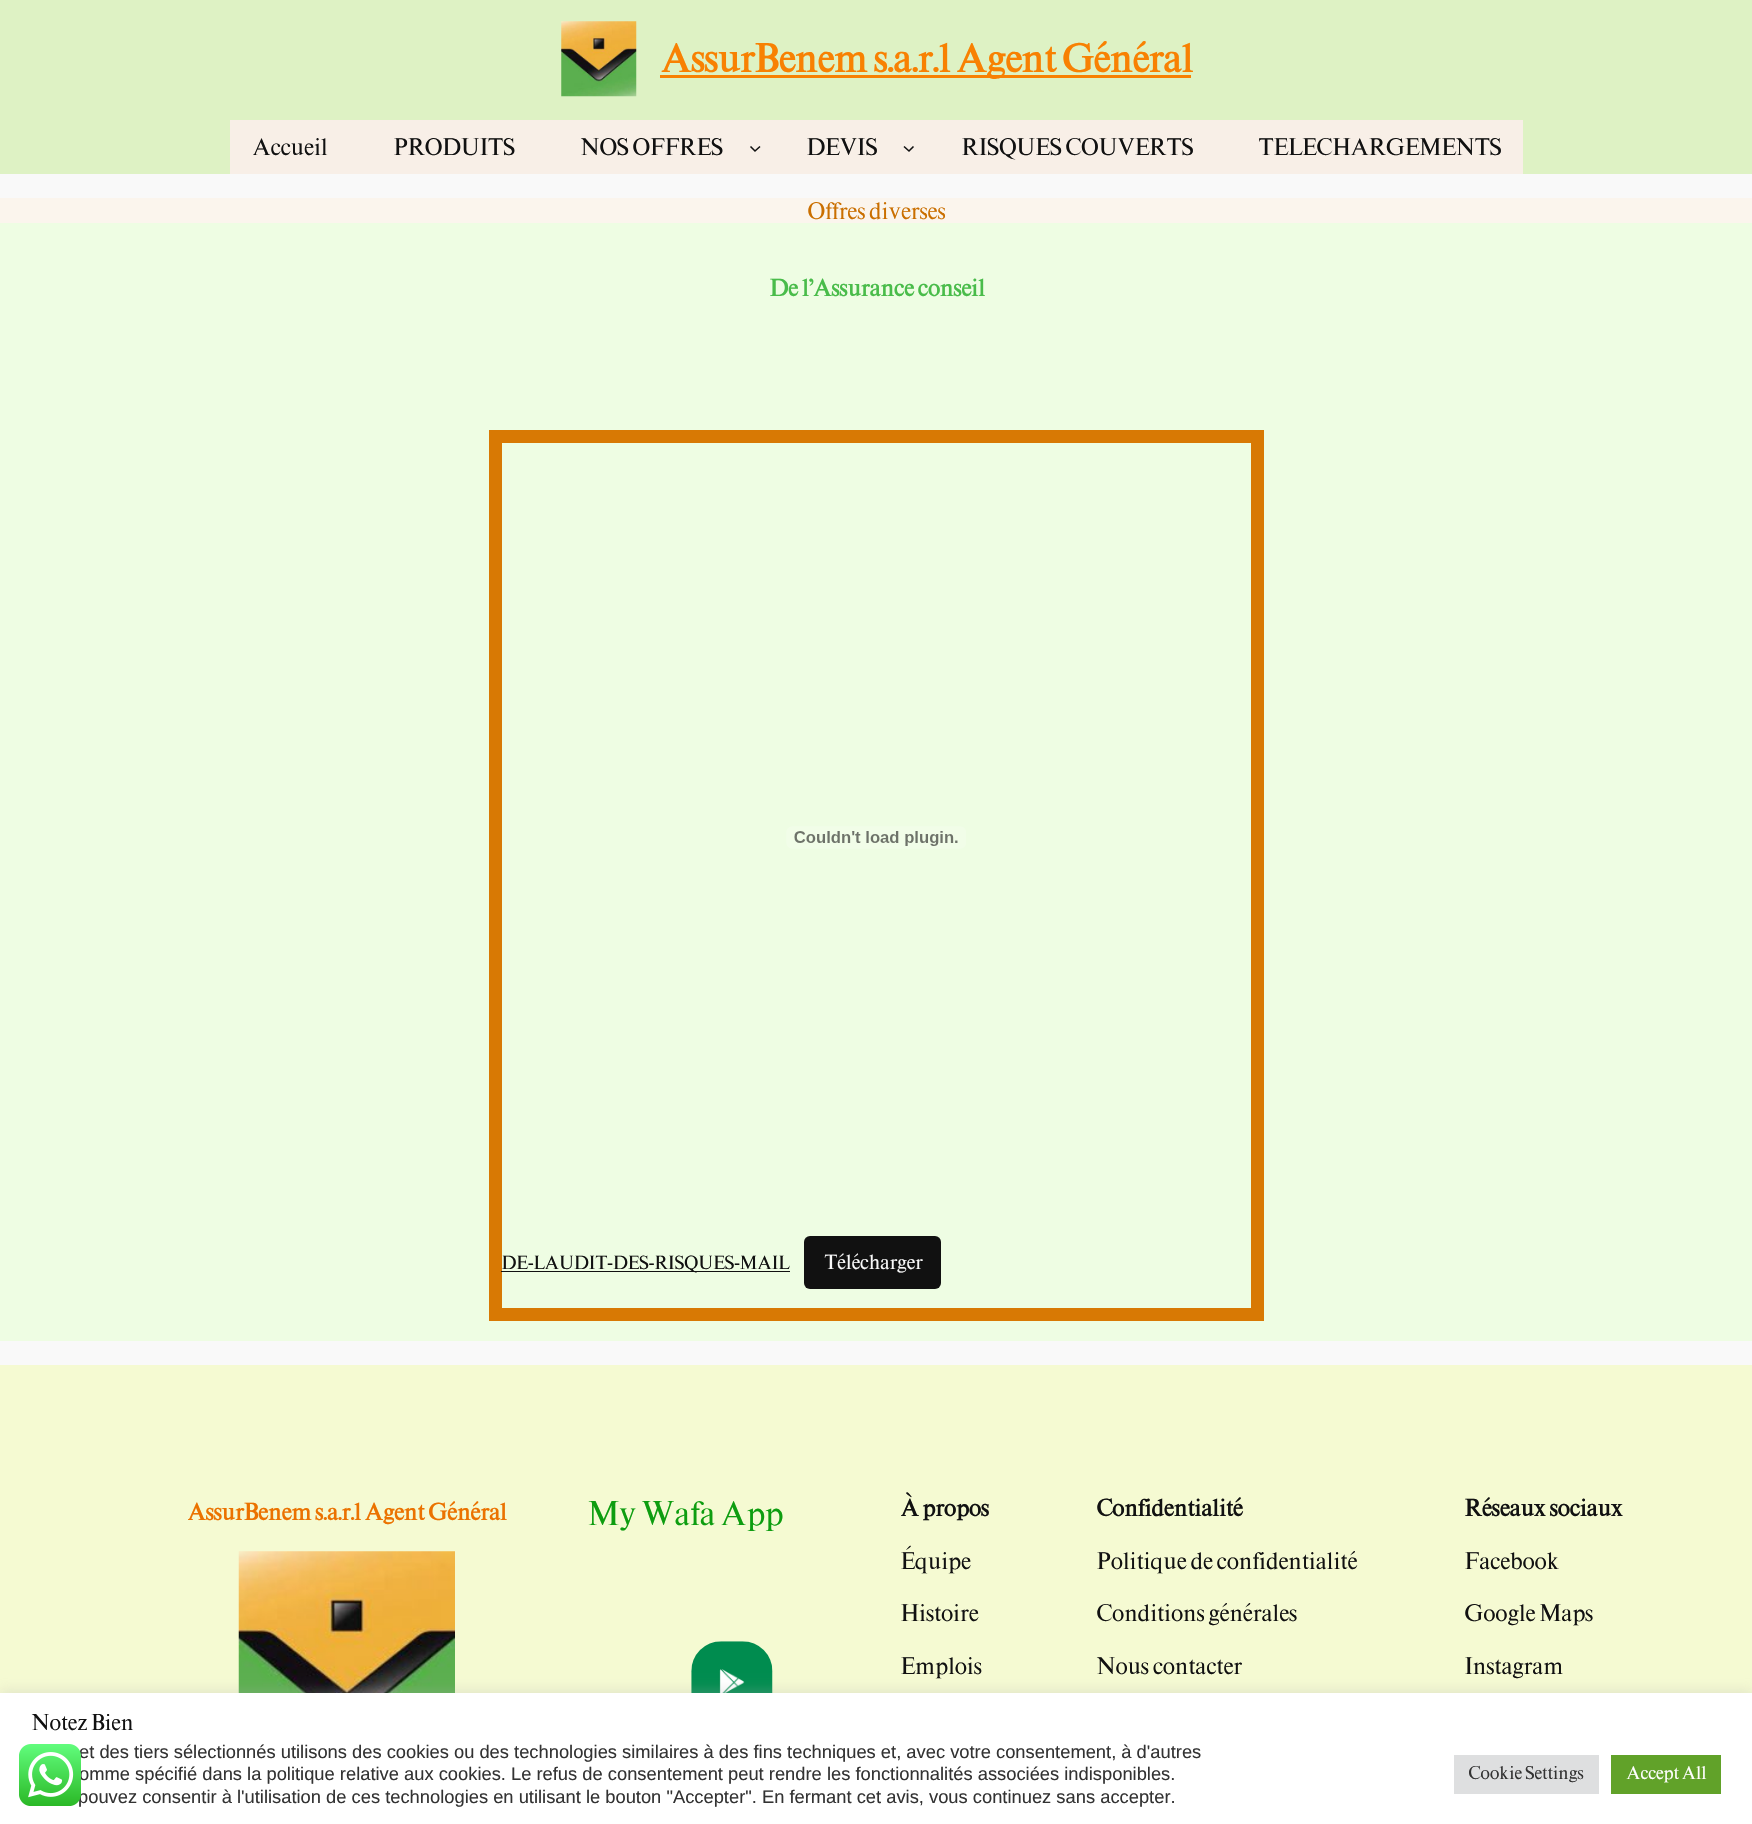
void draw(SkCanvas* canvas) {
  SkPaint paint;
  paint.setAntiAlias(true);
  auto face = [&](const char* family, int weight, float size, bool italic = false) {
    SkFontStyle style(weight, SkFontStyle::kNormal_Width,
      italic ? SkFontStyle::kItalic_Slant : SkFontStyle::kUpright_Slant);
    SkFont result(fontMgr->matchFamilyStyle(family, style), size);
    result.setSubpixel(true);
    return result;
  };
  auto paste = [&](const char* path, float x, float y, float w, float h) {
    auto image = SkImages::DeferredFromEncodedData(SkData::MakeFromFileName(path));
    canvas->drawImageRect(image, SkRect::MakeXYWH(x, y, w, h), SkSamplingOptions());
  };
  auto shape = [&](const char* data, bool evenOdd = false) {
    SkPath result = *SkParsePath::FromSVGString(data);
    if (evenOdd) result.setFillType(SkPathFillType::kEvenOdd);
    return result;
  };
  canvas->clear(0xfff9f9f9);
  paint.setColor(0xffdef2c4);
  canvas->drawRect(SkRect::MakeXYWH(0, 0, 1752, 174), paint);
  paste("img/1.png", 561, 21, 76, 76);
  paint.setColor(0xfff88102);
  canvas->drawRect(SkRect::MakeXYWH(660, 75, 531, 3), paint);
  paint.setColor(0xfff8efe7);
  canvas->drawRect(SkRect::MakeXYWH(230, 120, 1293, 54), paint);
  paint.setStroke(true);
  paint.setStrokeWidth(1.6f);
  paint.setColor(0xff111111);
  canvas->drawPath(shape("M750.5 146.5L755 151L760 146.5"), paint);
  canvas->drawPath(shape("M904 146.5L909 151L913.5 146.5"), paint);
  paint.setStroke(false);
  paint.setColor(0xffeefde3);
  canvas->drawRect(SkRect::MakeXYWH(0, 223, 1752, 1118), paint);
  paint.setColor(0xfffbf5ed);
  canvas->drawRect(SkRect::MakeXYWH(0, 198, 1752, 25), paint);
  paint.setStroke(true);
  paint.setStrokeWidth(13);
  paint.setColor(0xffd87904);
  canvas->drawRect(SkRect::MakeXYWH(495.5f, 436.5f, 762, 878), paint);
  paste("img/2.png", 786, 826, 180, 23);
  paint.setStroke(false);
  paint.setColor(0xff111111);
  canvas->drawRect(SkRect::MakeXYWH(501, 1271, 289, 1), paint);
  canvas->drawRoundRect(SkRect::MakeXYWH(804, 1236, 137, 53), 6, 6, paint);
  paint.setColor(0xfff5fad2);
  canvas->drawRect(SkRect::MakeXYWH(0, 1365, 1752, 328), paint);
  paste("img/3.png", 238, 1551, 217, 142);
  paste("img/4.png", 691, 1641, 82, 52);
  paint.setColor(0x4dacabab);
  paint.setMaskFilter(SkMaskFilter::MakeBlur(kNormal_SkBlurStyle, 6));
  canvas->drawRect(SkRect::MakeXYWH(0, 1691, 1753, 133), paint);
  paint.setMaskFilter(nullptr);
  {
    const struct { float x, y, w, h; SkColor color; } items[] = {
      {0, 1693, 1752, 131, 0xffffffff},
      {1454, 1755, 145, 39, 0xffdedfe0},
      {1611, 1755, 110, 39, 0xff61a229},
    };
    for (auto [x, y, w, h, color] : items) {
      paint.setColor(color);
      canvas->drawRect(SkRect::MakeXYWH(x, y, w, h), paint);
    }
  }
  auto f0 = face("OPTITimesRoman", 700, 35);
  paint.setColor(0xfff88102);
  canvas->drawString("AssurBenem s.a.r.l Agent Général", 660, 72, f0, paint);
  auto f1 = face("OPTITimesRoman", 400, 21);
  paint.setColor(0xff111111);
  {
    const struct { const char* s; float x, y; } items[] = {
      {"Accueil", 252, 155},
      {"PRODUITS", 393, 155},
      {"NOS OFFRES", 580, 155},
      {"DEVIS", 806, 155},
      {"RISQUES COUVERTS", 961, 155},
      {"TELECHARGEMENTS", 1258, 155},
    };
    for (auto [s, x, y] : items) {
      canvas->drawString(s, x, y, f1, paint);
    }
  }
  paint.setColor(0xffca6f00);
  canvas->drawString("Offres diverses", 807, 219, f1, paint);
  auto f2 = face("OPTITimesRoman", 700, 21);
  paint.setColor(0xff49bc4a);
  canvas->drawString("De l’Assurance conseil", 769, 296, f2, paint);
  auto f3 = face("OPTITimesRoman", 400, 16.75f);
  paint.setColor(0xff111111);
  canvas->drawString("DE-LAUDIT-DES-RISQUES-MAIL", 501, 1269, f3, paint);
  auto f4 = face("OPTITimesRoman", 400, 18);
  paint.setColor(0xfff9f9f9);
  canvas->drawString("Télécharger", 824, 1269, f4, paint);
  paint.setColor(0xffeb7200);
  canvas->drawString("AssurBenem s.a.r.l Agent Général", 187, 1520, f2, paint);
  auto f5 = face("OPTITimesRoman", 400, 30);
  paint.setColor(0xff0e9d10);
  canvas->drawString("My Wafa App", 587, 1525, f5, paint);
  paint.setColor(0xff111111);
  canvas->drawString("À propos", 900, 1516, f2, paint);
  {
    const struct { const char* s; float x, y; } items[] = {
      {"Équipe", 900, 1569},
      {"Histoire", 900, 1621},
      {"Emplois", 900, 1674},
    };
    for (auto [s, x, y] : items) {
      canvas->drawString(s, x, y, f1, paint);
    }
  }
  canvas->drawString("Confidentialité", 1096, 1516, f2, paint);
  {
    const struct { const char* s; float x, y; } items[] = {
      {"Politique de confidentialité", 1096, 1569},
      {"Conditions générales", 1096, 1621},
      {"Nous contacter", 1096, 1674},
    };
    for (auto [s, x, y] : items) {
      canvas->drawString(s, x, y, f1, paint);
    }
  }
  canvas->drawString("Réseaux sociaux", 1464, 1516, f2, paint);
  {
    const struct { const char* s; float x, y; } items[] = {
      {"Facebook", 1464, 1569},
      {"Google Maps", 1464, 1621},
      {"Instagram", 1464, 1674},
    };
    for (auto [s, x, y] : items) {
      canvas->drawString(s, x, y, f1, paint);
    }
  }
  auto f6 = face("OPTITimesRoman", 400, 20);
  canvas->drawString("Notez Bien", 31, 1730, f6, paint);
  auto f7 = face("Liberation Sans", 400, 18.33f);
  paint.setColor(0xff333333);
  {
    const struct { const char* s; float x, y; } items[] = {
      {"et des tiers sélectionnés utilisons des cookies ou des technologies similaires à des fins techniques et, avec votre consentement, à d'autres", 79, 1758},
      {"omme spécifié dans la politique relative aux cookies. Le refus de consentement peut rendre les fonctionnalités associées indisponibles.", 79, 1780},
      {"pouvez consentir à l'utilisation de ces technologies en utilisant le bouton \"Accepter\". En fermant cet avis, vous continuez sans accepter.", 78, 1803},
    };
    for (auto [s, x, y] : items) {
      canvas->drawString(s, x, y, f7, paint);
    }
  }
  auto f8 = face("OPTITimesRoman", 400, 16.25f);
  canvas->drawString("Cookie Settings", 1468, 1779, f8, paint);
  paint.setColor(0xffffffff);
  canvas->drawString("Accept All", 1626, 1779, f8, paint);
  paste("img/5.png", 19, 1744, 62, 62);
}
